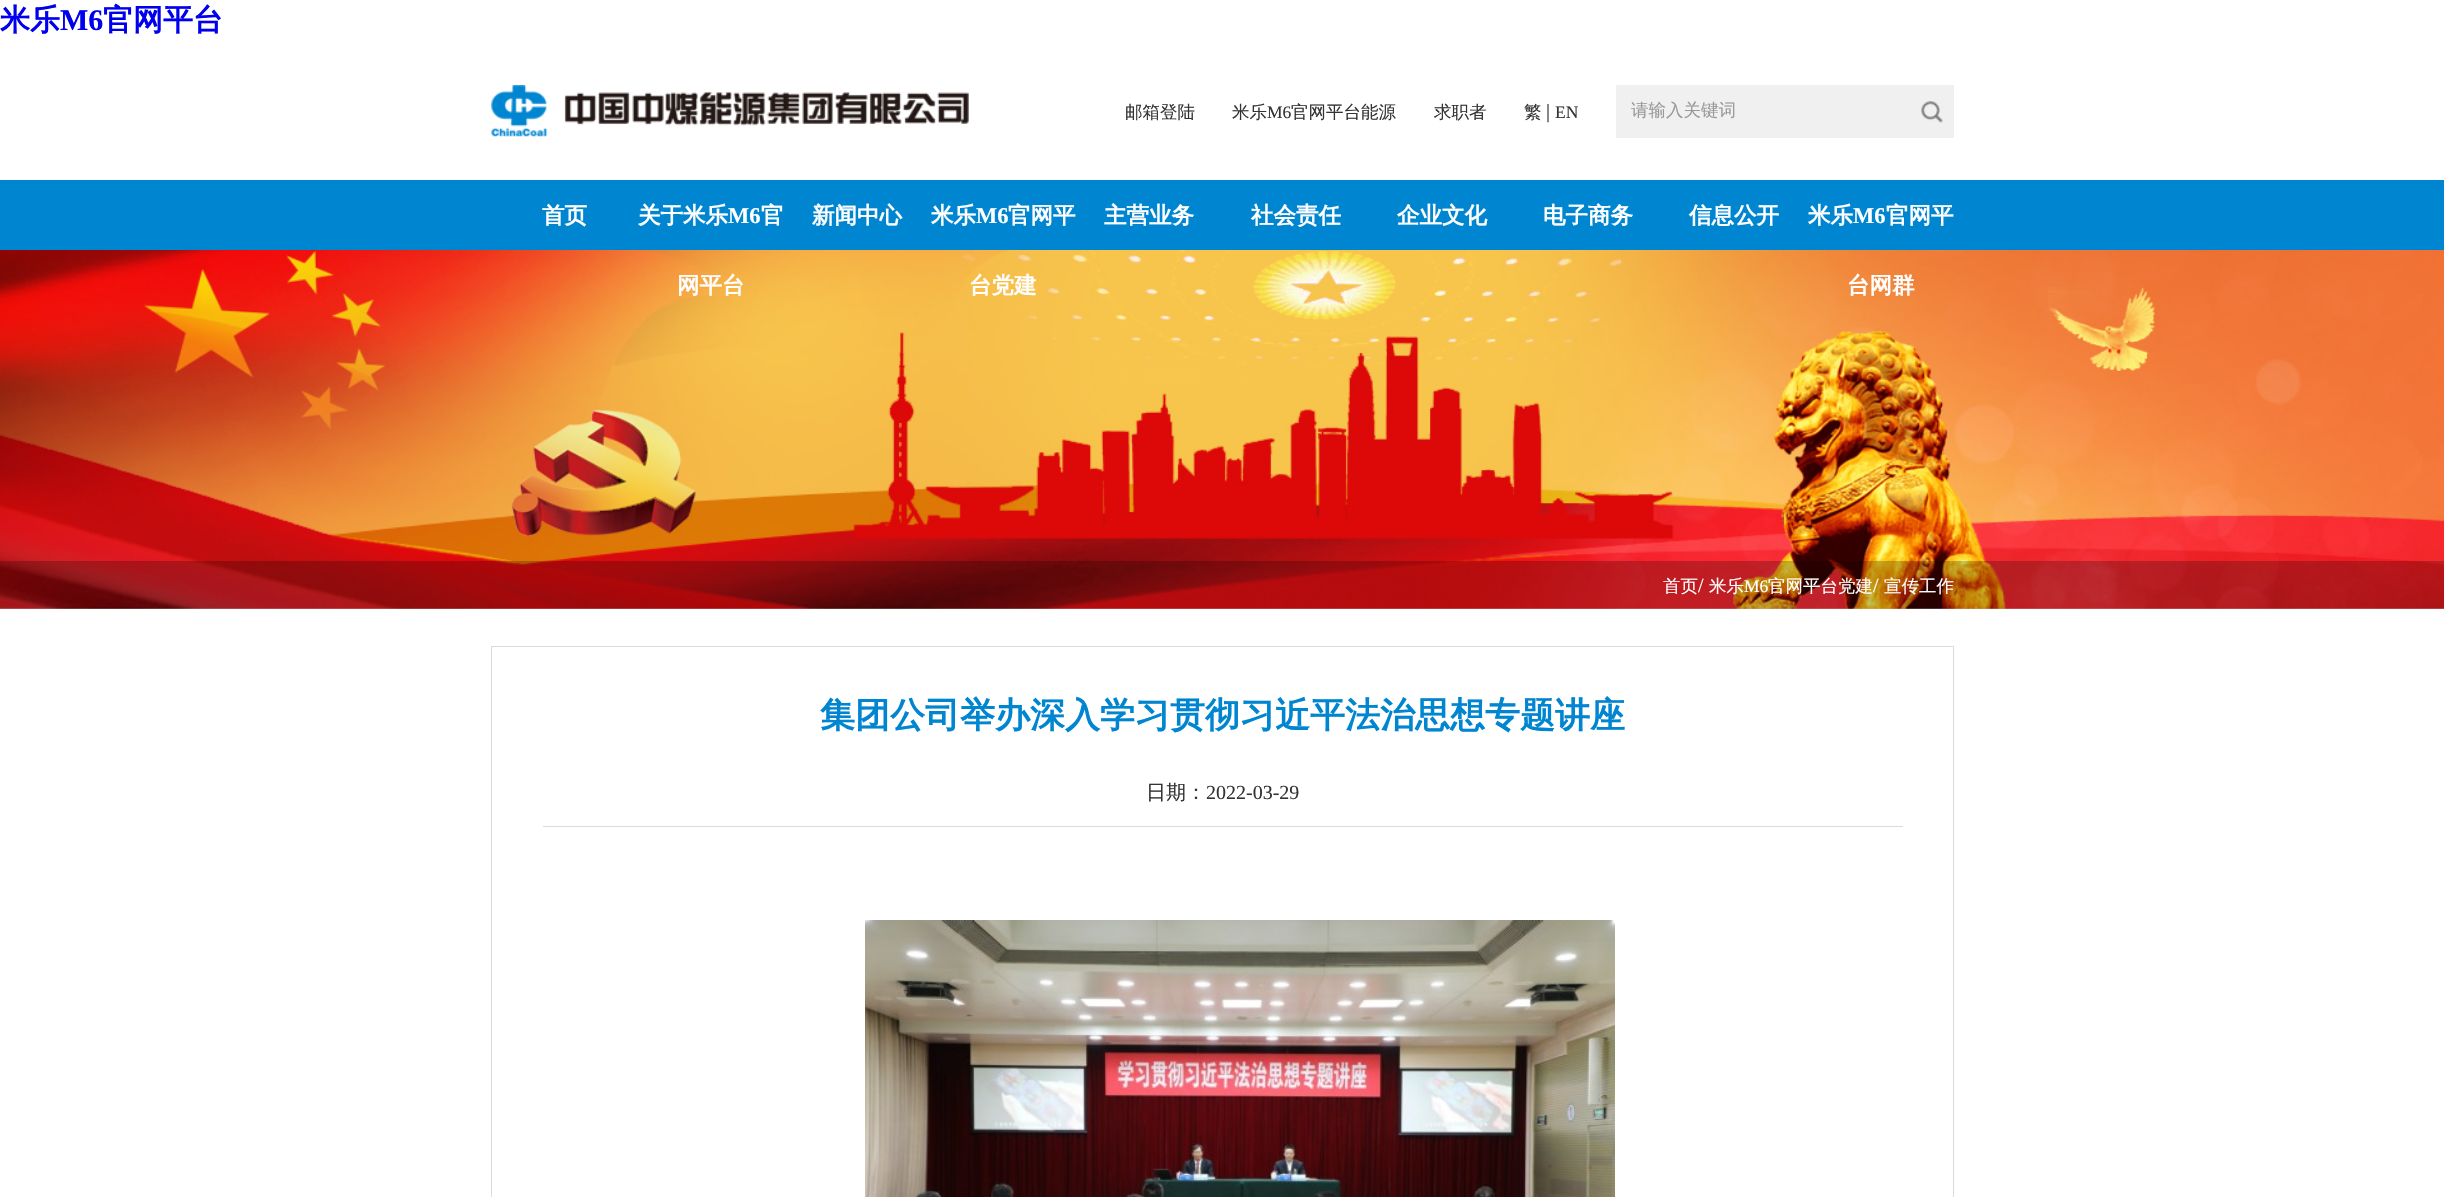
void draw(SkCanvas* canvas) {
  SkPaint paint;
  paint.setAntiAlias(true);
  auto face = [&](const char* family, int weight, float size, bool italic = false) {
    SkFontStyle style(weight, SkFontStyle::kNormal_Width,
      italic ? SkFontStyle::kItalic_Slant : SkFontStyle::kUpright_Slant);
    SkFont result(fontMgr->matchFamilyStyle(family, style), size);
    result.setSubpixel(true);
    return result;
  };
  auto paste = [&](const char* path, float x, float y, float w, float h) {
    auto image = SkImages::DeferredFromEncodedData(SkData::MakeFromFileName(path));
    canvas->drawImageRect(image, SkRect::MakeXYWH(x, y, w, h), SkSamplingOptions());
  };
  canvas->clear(0xffffffff);
  paste("img/1.png", 491, 85, 478, 52);
  paint.setColor(0xfff0f0f0);
  canvas->drawRect(SkRect::MakeXYWH(1616, 85, 338, 53), paint);
  paste("img/2.png", 1921, 101, 22, 22);
  paint.setColor(0xff0086d1);
  canvas->drawRect(SkRect::MakeXYWH(0, 180, 2444, 70), paint);
  paste("img/3.png", 0, 250, 2444, 359);
  paint.setColor(0x3b000000);
  canvas->drawRect(SkRect::MakeXYWH(0, 561, 2444, 48), paint);
  paint.setStroke(true);
  paint.setStrokeWidth(1);
  paint.setColor(0xffdbdbdb);
  canvas->drawRect(SkRect::MakeXYWH(491.5f, 646.5f, 1462, 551), paint);
  paint.setStroke(false);
  canvas->drawRect(SkRect::MakeXYWH(543, 826, 1360, 1), paint);
  paste("img/4.png", 865, 920, 750, 277);
  auto f0 = face("WenQuanYi Zen Hei", 700, 30);
  paint.setColor(0xff0000ee);
  canvas->drawString("米乐", 0, 30, f0, paint);
  auto f1 = face("Liberation Serif", 700, 30);
  canvas->drawString("M6", 60, 30, f1, paint);
  canvas->drawString("官网平台", 103, 30, f0, paint);
  auto f2 = face("WenQuanYi Zen Hei", 500, 17.5f);
  paint.setColor(0xff333333);
  canvas->drawString("邮箱登陆", 1125, 118, f2, paint);
  canvas->drawString("米乐", 1232, 118, f2, paint);
  auto f3 = face("Liberation Serif", 400, 17.5f);
  canvas->drawString("M6", 1267, 118, f3, paint);
  {
    const struct { const char* s; float x, y; } items[] = {
      {"官网平台能源", 1291, 118},
      {"求职者", 1434, 118},
      {"繁", 1524, 118},
    };
    for (auto [s, x, y] : items) {
      canvas->drawString(s, x, y, f2, paint);
    }
  }
  auto f4 = face("Liberation Serif", 400, 20);
  canvas->drawString("|", 1546, 118, f4, paint);
  canvas->drawString("EN", 1555, 118, f3, paint);
  paint.setColor(0xff999999);
  canvas->drawString("请输入关键词", 1631, 116, f2, paint);
  auto f5 = face("WenQuanYi Zen Hei", 700, 22.5f);
  paint.setColor(0xffffffff);
  canvas->drawString("首页", 542, 223, f5, paint);
  canvas->drawString("关于米乐", 638, 223, f5, paint);
  auto f6 = face("Liberation Serif", 700, 22.5f);
  canvas->drawString("M6", 728, 223, f6, paint);
  {
    const struct { const char* s; float x, y; } items[] = {
      {"官", 761, 223},
      {"网平台", 677, 293},
      {"新闻中心", 812, 223},
      {"米乐", 931, 223},
    };
    for (auto [s, x, y] : items) {
      canvas->drawString(s, x, y, f5, paint);
    }
  }
  canvas->drawString("M6", 976, 223, f6, paint);
  {
    const struct { const char* s; float x, y; } items[] = {
      {"官网平", 1008, 223},
      {"台党建", 969, 293},
      {"主营业务", 1104, 223},
      {"社会责任", 1251, 223},
      {"企业文化", 1397, 223},
      {"电子商务", 1543, 223},
      {"信息公开", 1689, 223},
      {"米乐", 1808, 223},
    };
    for (auto [s, x, y] : items) {
      canvas->drawString(s, x, y, f5, paint);
    }
  }
  canvas->drawString("M6", 1853, 223, f6, paint);
  canvas->drawString("官网平", 1886, 223, f5, paint);
  canvas->drawString("台网群", 1847, 293, f5, paint);
  canvas->drawString("首页", 1663, 592, f2, paint);
  canvas->drawString("/", 1698, 592, f4, paint);
  canvas->drawString("米乐", 1709, 592, f2, paint);
  canvas->drawString("M6", 1744, 592, f3, paint);
  canvas->drawString("官网平台党建", 1768, 592, f2, paint);
  canvas->drawString("/", 1873, 592, f4, paint);
  canvas->drawString("宣传工作", 1884, 592, f2, paint);
  auto f7 = face("WenQuanYi Zen Hei", 700, 35);
  paint.setColor(0xff0086d1);
  canvas->drawString("集团公司举办深入学习贯彻习近平法治思想专题讲座", 820, 727, f7, paint);
  auto f8 = face("WenQuanYi Zen Hei", 500, 20);
  paint.setColor(0xff333333);
  canvas->drawString("日期：", 1146, 799, f8, paint);
  canvas->drawString("2022-03-29", 1206, 799, f4, paint);
}
